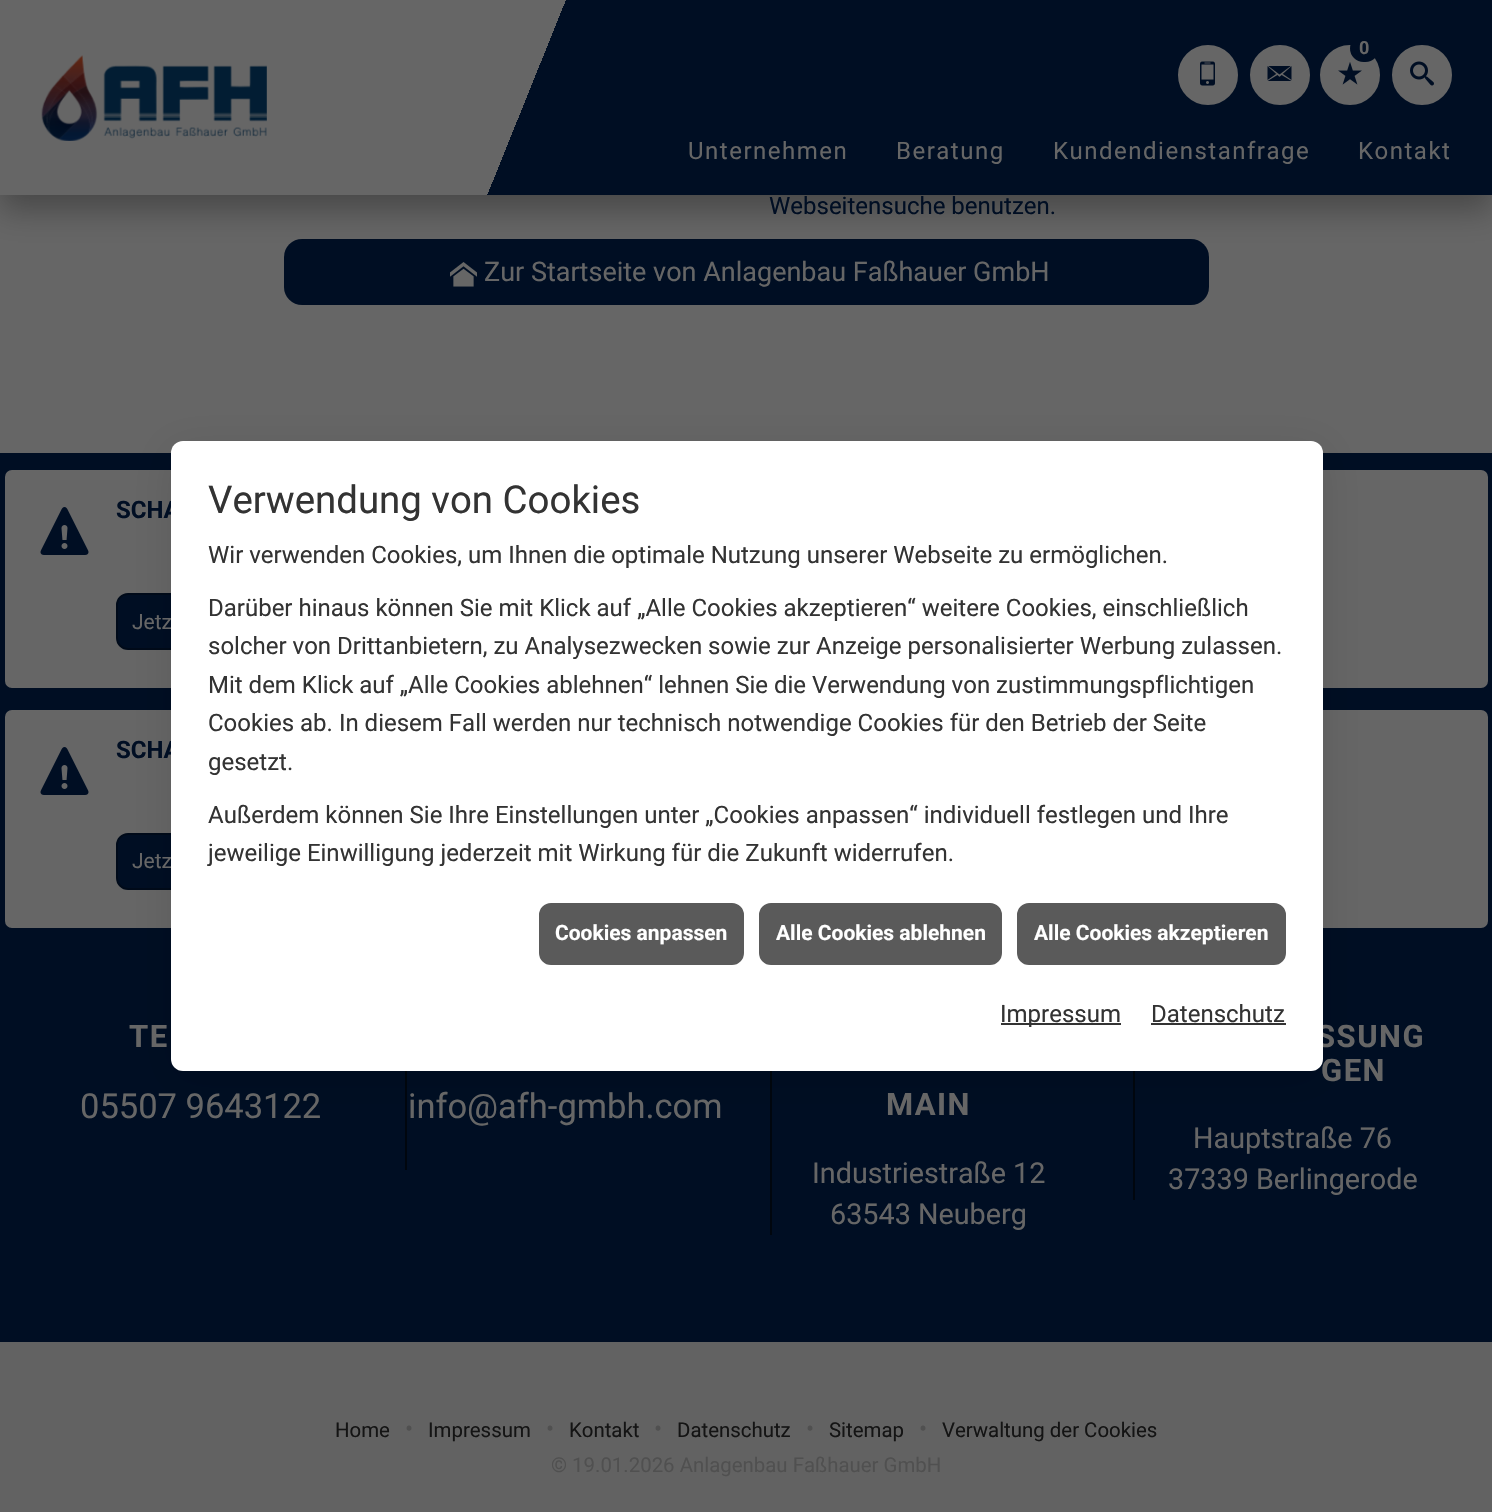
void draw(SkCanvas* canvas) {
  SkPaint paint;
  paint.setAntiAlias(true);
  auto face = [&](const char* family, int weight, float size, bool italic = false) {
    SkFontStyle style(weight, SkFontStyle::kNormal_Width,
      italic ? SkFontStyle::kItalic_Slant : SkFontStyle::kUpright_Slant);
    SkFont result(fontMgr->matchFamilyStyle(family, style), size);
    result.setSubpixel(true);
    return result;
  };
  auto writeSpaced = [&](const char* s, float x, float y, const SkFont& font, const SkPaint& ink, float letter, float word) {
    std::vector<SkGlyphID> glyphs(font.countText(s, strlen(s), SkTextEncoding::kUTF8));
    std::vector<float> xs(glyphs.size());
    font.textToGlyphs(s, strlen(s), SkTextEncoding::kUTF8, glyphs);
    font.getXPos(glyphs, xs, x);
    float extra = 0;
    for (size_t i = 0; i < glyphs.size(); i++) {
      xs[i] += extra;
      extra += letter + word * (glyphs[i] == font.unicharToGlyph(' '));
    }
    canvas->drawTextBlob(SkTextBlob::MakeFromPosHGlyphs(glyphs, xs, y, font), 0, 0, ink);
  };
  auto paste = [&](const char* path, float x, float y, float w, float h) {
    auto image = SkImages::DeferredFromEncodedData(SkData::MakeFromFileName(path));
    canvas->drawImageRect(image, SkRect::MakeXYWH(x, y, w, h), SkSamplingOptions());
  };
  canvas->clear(0xff666666);
  paint.setColor(0xff000e23);
  canvas->drawRoundRect(SkRect::MakeXYWH(284, 239, 925, 66), 18, 18, paint);
  paint.setColor(0x4d000000);
  paint.setMaskFilter(SkMaskFilter::MakeBlur(kNormal_SkBlurStyle, 15));
  canvas->drawRect(SkRect::MakeXYWH(0, 15, 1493, 195), paint);
  paint.setMaskFilter(nullptr);
  {
    const SkColor colors[] = {0xff000e23, 0xff666666};
    const float stops[] = {0.64f, 0.64f};
    const SkPoint ends[] = {{1422, 370}, {71, -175}};
    paint.setShader(SkGradientShader::MakeLinear(ends, colors, stops, 2, SkTileMode::kClamp));
    paint.setAlpha(255);
  }
  canvas->drawRect(SkRect::MakeXYWH(0, 0, 1492, 195), paint);
  paint.setShader(nullptr);
  paint.setColor(0xff666666);
  canvas->drawCircle(1208, 75, 29, paint);
  paint.setStroke(true);
  paint.setStrokeWidth(2);
  canvas->drawCircle(1208, 75, 29, paint);
  paste("img/1.png", 1200, 61, 15, 25);
  paint.setStroke(false);
  canvas->drawCircle(1280, 75, 29, paint);
  paint.setStroke(true);
  canvas->drawCircle(1280, 75, 29, paint);
  paste("img/2.png", 1267, 66, 25, 15);
  paint.setStroke(false);
  canvas->drawCircle(1350, 75, 29, paint);
  paint.setStroke(true);
  canvas->drawCircle(1350, 75, 29, paint);
  paint.setStroke(false);
  paint.setColor(0xff000e23);
  canvas->drawRoundRect(SkRect::MakeXYWH(1350, 35, 29, 27), 13.5f, 13.5f, paint);
  paste("img/3.png", 1338, 62, 24, 23);
  paint.setColor(0xff666666);
  canvas->drawCircle(1422, 75, 29, paint);
  paint.setStroke(true);
  canvas->drawCircle(1422, 75, 29, paint);
  paste("img/4.png", 1410, 61, 24, 25);
  paste("img/5.png", 41, 55, 226, 86);
  paste("img/6.png", 450, 262, 27, 25);
  paint.setStroke(false);
  paint.setColor(0xff000e23);
  canvas->drawRect(SkRect::MakeXYWH(0, 453, 1492, 889), paint);
  paint.setColor(0xff666666);
  canvas->drawRoundRect(SkRect::MakeXYWH(2.5f, 467.5f, 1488, 223), 9.5f, 9.5f, paint);
  paint.setStroke(true);
  paint.setStrokeWidth(5);
  paint.setColor(0xff000e23);
  canvas->drawRoundRect(SkRect::MakeXYWH(2.5f, 467.5f, 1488, 223), 9.5f, 9.5f, paint);
  paste("img/7.png", 40, 507, 49, 48);
  paint.setStroke(false);
  canvas->drawRoundRect(SkRect::MakeXYWH(117, 594, 391, 55), 11, 11, paint);
  paint.setStroke(true);
  paint.setStrokeWidth(2);
  paint.setColor(0xff000a19);
  canvas->drawRoundRect(SkRect::MakeXYWH(117, 594, 391, 55), 11, 11, paint);
  paint.setStroke(false);
  paint.setColor(0xff666666);
  canvas->drawRoundRect(SkRect::MakeXYWH(2.5f, 707.5f, 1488, 223), 9.5f, 9.5f, paint);
  paint.setStroke(true);
  paint.setStrokeWidth(5);
  paint.setColor(0xff000e23);
  canvas->drawRoundRect(SkRect::MakeXYWH(2.5f, 707.5f, 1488, 223), 9.5f, 9.5f, paint);
  paste("img/7.png", 40, 747, 49, 48);
  paint.setStroke(false);
  canvas->drawRoundRect(SkRect::MakeXYWH(117, 834, 391, 55), 11, 11, paint);
  paint.setStroke(true);
  paint.setStrokeWidth(2);
  paint.setColor(0xff000a19);
  canvas->drawRoundRect(SkRect::MakeXYWH(117, 834, 391, 55), 11, 11, paint);
  paint.setStroke(false);
  {
    const struct { float x, y, w, h; SkColor color; } items[] = {
      {405, 1071, 2, 99, 0xff00060e},
      {770, 1071, 2, 164, 0xff00060e},
      {1133, 1071, 2, 129, 0xff00060e},
      {0, 1342, 1492, 170, 0xff626262},
    };
    for (auto [x, y, w, h, color] : items) {
      paint.setColor(color);
      canvas->drawRect(SkRect::MakeXYWH(x, y, w, h), paint);
    }
  }
  paint.setColor(0x1a000000);
  paint.setMaskFilter(SkMaskFilter::MakeBlur(kNormal_SkBlurStyle, 21));
  canvas->drawRoundRect(SkRect::MakeXYWH(171, 450, 1152, 630), 12, 12, paint);
  paint.setMaskFilter(nullptr);
  auto f0 = face("Roboto", 700, 18);
  paint.setColor(0xff666666);
  canvas->drawString("0", 1359, 54, f0, paint);
  auto f1 = face("Roboto", 400, 24);
  {
    const struct { const char* s; float x, y; } items[] = {
      {"Unternehmen", 688, 159},
      {"Beratung", 896, 159},
      {"Kundendienstanfrage", 1053, 159},
      {"Kontakt", 1358, 159},
    };
    for (auto [s, x, y] : items) {
      writeSpaced(s, x, y, f1, paint, 1.5f, 0);
    }
  }
  paint.setColor(0xff000e23);
  canvas->drawString("Webseitensuche benutzen.", 769, 214, f1, paint);
  auto f2 = face("Roboto", 400, 27);
  paint.setColor(0xff666666);
  canvas->drawString("Zur Startseite von Anlagenbau Faßhauer GmbH", 484, 281, f2, paint);
  auto f3 = face("Roboto", 700, 24);
  paint.setColor(0xff000e23);
  canvas->drawString("SCHA", 116, 518, f3, paint);
  auto f4 = face("Roboto", 400, 21);
  paint.setColor(0xff666666);
  canvas->drawString("Jetz", 132, 629, f4, paint);
  paint.setColor(0xff000e23);
  canvas->drawString("SCHA", 116, 758, f3, paint);
  paint.setColor(0xff666666);
  canvas->drawString("Jetz", 132, 868, f4, paint);
  auto f5 = face("Roboto", 700, 31);
  writeSpaced("TE", 129, 1047, f5, paint, 1.5f, 0);
  auto f6 = face("Roboto", 400, 34.5f);
  canvas->drawString("05507 9643122", 80, 1118, f6, paint);
  canvas->drawString("info@afh-gmbh.com", 408, 1118, f6, paint);
  writeSpaced("MAIN", 886, 1115, f5, paint, 1.5f, 0);
  auto f7 = face("Roboto", 400, 28.75f);
  canvas->drawString("Industriestraße 12", 812, 1183, f7, paint);
  canvas->drawString("63543 Neuberg", 830, 1224, f7, paint);
  writeSpaced("SSUNG", 1316, 1047, f5, paint, 1.5f, 0);
  writeSpaced("GEN", 1321, 1081, f5, paint, 1.5f, 0);
  canvas->drawString("Hauptstraße 76", 1193, 1148, f7, paint);
  canvas->drawString("37339 Berlingerode", 1168, 1189, f7, paint);
  auto f8 = face("Roboto", 400, 20.4f);
  paint.setColor(0xff141414);
  canvas->drawString("Home", 335, 1437, f8, paint);
  paint.setColor(0xff505050);
  canvas->drawString("•", 405, 1437, f1, paint);
  paint.setColor(0xff141414);
  canvas->drawString("Impressum", 428, 1437, f8, paint);
  paint.setColor(0xff505050);
  canvas->drawString("•", 546, 1437, f1, paint);
  paint.setColor(0xff141414);
  canvas->drawString("Kontakt", 569, 1437, f8, paint);
  paint.setColor(0xff505050);
  canvas->drawString("•", 654, 1437, f1, paint);
  paint.setColor(0xff141414);
  canvas->drawString("Datenschutz", 677, 1437, f8, paint);
  paint.setColor(0xff505050);
  canvas->drawString("•", 806, 1437, f1, paint);
  paint.setColor(0xff141414);
  canvas->drawString("Sitemap", 829, 1437, f8, paint);
  paint.setColor(0xff505050);
  canvas->drawString("•", 919, 1437, f1, paint);
  paint.setColor(0xff141414);
  canvas->drawString("Verwaltung der Cookies", 942, 1437, f8, paint);
  paint.setColor(0xff505050);
  canvas->drawString("© 19.01.2026 Anlagenbau Faßhauer GmbH", 551, 1472, f8, paint);
  paint.setColor(0xffffffff);
  canvas->drawRoundRect(SkRect::MakeXYWH(171, 441, 1152, 630), 12, 12, paint);
  auto f9 = face("Roboto", 400, 38.4f);
  paint.setColor(0xff333333);
  canvas->drawString("Verwendung von Cookies", 208, 513, f9, paint);
  {
    const struct { const char* s; float x, y; } items[] = {
      {"Wir verwenden Cookies, um Ihnen die optimale Nutzung unserer Webseite zu ermöglichen.", 208, 563},
      {"Darüber hinaus können Sie mit Klick auf „Alle Cookies akzeptieren“ weitere Cookies, einschließlich", 208, 616},
      {"solcher von Drittanbietern, zu Analysezwecken sowie zur Anzeige personalisierter Werbung zulassen.", 208, 654},
      {"Mit dem Klick auf „Alle Cookies ablehnen“ lehnen Sie die Verwendung von zustimmungspflichtigen", 208, 693},
      {"Cookies ab. In diesem Fall werden nur technisch notwendige Cookies für den Betrieb der Seite", 208, 731},
      {"gesetzt.", 208, 770},
      {"Außerdem können Sie Ihre Einstellungen unter „Cookies anpassen“ individuell festlegen und Ihre", 208, 823},
      {"jeweilige Einwilligung jederzeit mit Wirkung für die Zukunft widerrufen.", 208, 861},
    };
    for (auto [s, x, y] : items) {
      canvas->drawString(s, x, y, f1, paint);
    }
  }
  paint.setColor(0xff5a5a5a);
  canvas->drawRoundRect(SkRect::MakeXYWH(540, 904, 203, 60), 11, 11, paint);
  paint.setStroke(true);
  canvas->drawRoundRect(SkRect::MakeXYWH(540, 904, 203, 60), 11, 11, paint);
  auto f10 = face("Roboto", 700, 21);
  paint.setStroke(false);
  paint.setColor(0xffffffff);
  canvas->drawString("Cookies anpassen", 555, 940, f10, paint);
  paint.setColor(0xff5a5a5a);
  canvas->drawRoundRect(SkRect::MakeXYWH(760, 904, 241, 60), 11, 11, paint);
  paint.setStroke(true);
  canvas->drawRoundRect(SkRect::MakeXYWH(760, 904, 241, 60), 11, 11, paint);
  paint.setStroke(false);
  paint.setColor(0xffffffff);
  canvas->drawString("Alle Cookies ablehnen", 776, 940, f10, paint);
  paint.setColor(0xff5a5a5a);
  canvas->drawRoundRect(SkRect::MakeXYWH(1018, 904, 267, 60), 11, 11, paint);
  paint.setStroke(true);
  canvas->drawRoundRect(SkRect::MakeXYWH(1018, 904, 267, 60), 11, 11, paint);
  paint.setStroke(false);
  paint.setColor(0xffffffff);
  canvas->drawString("Alle Cookies akzeptieren", 1034, 940, f10, paint);
  paint.setColor(0xff333333);
  canvas->drawRect(SkRect::MakeXYWH(1001, 1023, 120, 2), paint);
  canvas->drawString("Impressum", 1000, 1022, f1, paint);
  canvas->drawString("Datenschutz", 1151, 1022, f1, paint);
  canvas->drawRect(SkRect::MakeXYWH(1151, 1023, 135, 2), paint);
}
